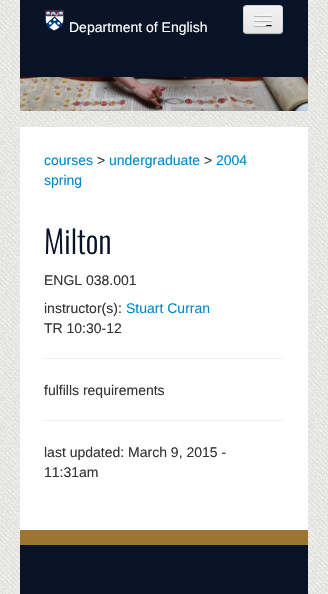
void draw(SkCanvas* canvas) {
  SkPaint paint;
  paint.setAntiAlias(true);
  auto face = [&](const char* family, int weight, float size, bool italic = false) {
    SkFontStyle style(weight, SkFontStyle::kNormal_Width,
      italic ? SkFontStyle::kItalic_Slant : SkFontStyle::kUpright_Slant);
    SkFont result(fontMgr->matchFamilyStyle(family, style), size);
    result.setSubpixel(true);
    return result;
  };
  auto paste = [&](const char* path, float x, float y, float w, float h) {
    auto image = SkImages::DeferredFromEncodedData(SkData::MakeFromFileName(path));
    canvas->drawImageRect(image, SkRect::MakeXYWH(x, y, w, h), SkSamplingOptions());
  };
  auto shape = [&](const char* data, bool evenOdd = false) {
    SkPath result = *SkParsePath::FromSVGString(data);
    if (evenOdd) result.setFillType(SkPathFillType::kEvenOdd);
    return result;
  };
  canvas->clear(0xffffffff);
  paste("img/1.png", 0, 0, 328, 594);
  paint.setColor(0xff081327);
  canvas->drawRect(SkRect::MakeXYWH(20, 0, 288, 77), paint);
  paste("img/2.png", 45, 10, 19, 21);
  paint.setColor(0xff1b2537);
  canvas->drawPath(shape("M243 30C243 36 248 35 252 35H274C278 35 283 36 283 30C283 32 281 34 279 34H247C245 34 243 32 243 30Z"), paint);
  paint.setColor(0xffededed);
  canvas->drawRoundRect(SkRect::MakeXYWH(243, 5, 40, 29), 4, 4, paint);
  canvas->save();
  canvas->clipPath(shape("M247 5H279C281 5 283 7 283 9V30C283 32 281 34 279 34H247C245 34 243 32 243 30V9C243 7 245 5 247 5Z"), true);
  {
    const SkColor colors[] = {0xfff2f2f2, 0xffe5e5e5};
    const float stops[] = {0, 1};
    const SkPoint ends[] = {{263, 6}, {263, 33}};
    paint.setShader(SkGradientShader::MakeLinear(ends, colors, stops, 2, SkTileMode::kClamp));
    paint.setAlpha(255);
  }
  canvas->drawRect(SkRect::MakeXYWH(243, 6, 40, 27), paint);
  canvas->restore();
  paint.setStroke(true);
  paint.setStrokeWidth(1);
  paint.setShader(nullptr);
  paint.setColor(0x40000000);
  canvas->drawPath(shape("M281.5 32.5C281 33 280 33.5 279 33.5H247C246 33.5 245 33 244.5 32.5"), paint);
  paint.setColor(0x1a000000);
  canvas->drawPath(shape("M244.5 32.5C244 32 243.5 31 243.5 30V9C243.5 8 244 7 244.5 6.5C245 6 246 5.5 247 5.5H279C280 5.5 281 6 281.5 6.5C282 7 282.5 8 282.5 9V30C282.5 31 282 32 281.5 32.5"), paint);
  paint.setStroke(false);
  paint.setColor(0xffb2b2b2);
  canvas->drawPath(shape("M254 15.5C253 17.5 257.5 17 257.5 17H268.5C268.5 17 273 17.5 272 15.5C271 16.5 264.5 16 263 16C261.5 16 255 16.5 254 15.5Z"), paint);
  paint.setColor(0xfff5f5f5);
  canvas->drawRoundRect(SkRect::MakeXYWH(254, 14, 18, 2), 1, 1, paint);
  paint.setColor(0xffb0b0b0);
  canvas->drawPath(shape("M254 20.5C253 22.5 257.5 22 257.5 22H268.5C268.5 22 273 22.5 272 20.5C271 21.5 264.5 21 263 21C261.5 21 255 21.5 254 20.5Z"), paint);
  paint.setColor(0xfff5f5f5);
  canvas->drawRoundRect(SkRect::MakeXYWH(254, 19, 18, 2), 1, 1, paint);
  paint.setColor(0xffaeaeae);
  canvas->drawPath(shape("M254 25.5C253 27.5 257.5 27 257.5 27H268.5C268.5 27 273 27.5 272 25.5C271 26.5 264.5 26 263 26C261.5 26 255 26.5 254 25.5Z"), paint);
  paint.setColor(0xfff5f5f5);
  canvas->drawRoundRect(SkRect::MakeXYWH(254, 24, 18, 2), 1, 1, paint);
  paste("img/3.png", 266, 25, 6, 1);
  paste("img/4.png", 20, 77, 288, 34);
  {
    const struct { float x, y, w, h; SkColor color; } items[] = {
      {20, 127, 288, 403, 0xffffffff},
      {44, 358, 238, 1, 0xffeeeeee},
      {44, 420, 238, 1, 0xffeeeeee},
      {20, 545, 288, 49, 0xff081327},
      {20, 530, 288, 15, 0xff9c7533},
    };
    for (auto [x, y, w, h, color] : items) {
      paint.setColor(color);
      canvas->drawRect(SkRect::MakeXYWH(x, y, w, h), paint);
    }
  }
  auto f0 = face("Liberation Sans", 400, 14);
  paint.setColor(0xffffffff);
  canvas->drawString("Department of English", 69, 32, f0, paint);
  paint.setColor(0xff0088cc);
  canvas->drawString("courses", 44, 165, f0, paint);
  paint.setColor(0xff333333);
  canvas->drawString(">", 97, 165, f0, paint);
  paint.setColor(0xff0088cc);
  canvas->drawString("undergraduate", 109, 165, f0, paint);
  paint.setColor(0xff333333);
  canvas->drawString(">", 204, 165, f0, paint);
  paint.setColor(0xff0088cc);
  canvas->drawString("2004", 216, 165, f0, paint);
  canvas->drawString("spring", 44, 185, f0, paint);
  auto f1 = face("Oswald", 300, 31.5f);
  paint.setColor(0xff081327);
  canvas->drawString("Milton", 44, 254, f1, paint);
  paint.setColor(0xff333333);
  canvas->drawString("ENGL 038.001", 44, 285, f0, paint);
  canvas->drawString("instructor(s):", 44, 313, f0, paint);
  paint.setColor(0xff0088cc);
  canvas->drawString("Stuart Curran", 126, 313, f0, paint);
  paint.setColor(0xff333333);
  {
    const struct { const char* s; float x, y; } items[] = {
      {"TR 10:30-12", 44, 333},
      {"fulfills requirements", 44, 395},
      {"last updated: March 9, 2015 -", 44, 457},
      {"11:31am", 44, 477},
    };
    for (auto [s, x, y] : items) {
      canvas->drawString(s, x, y, f0, paint);
    }
  }
}
